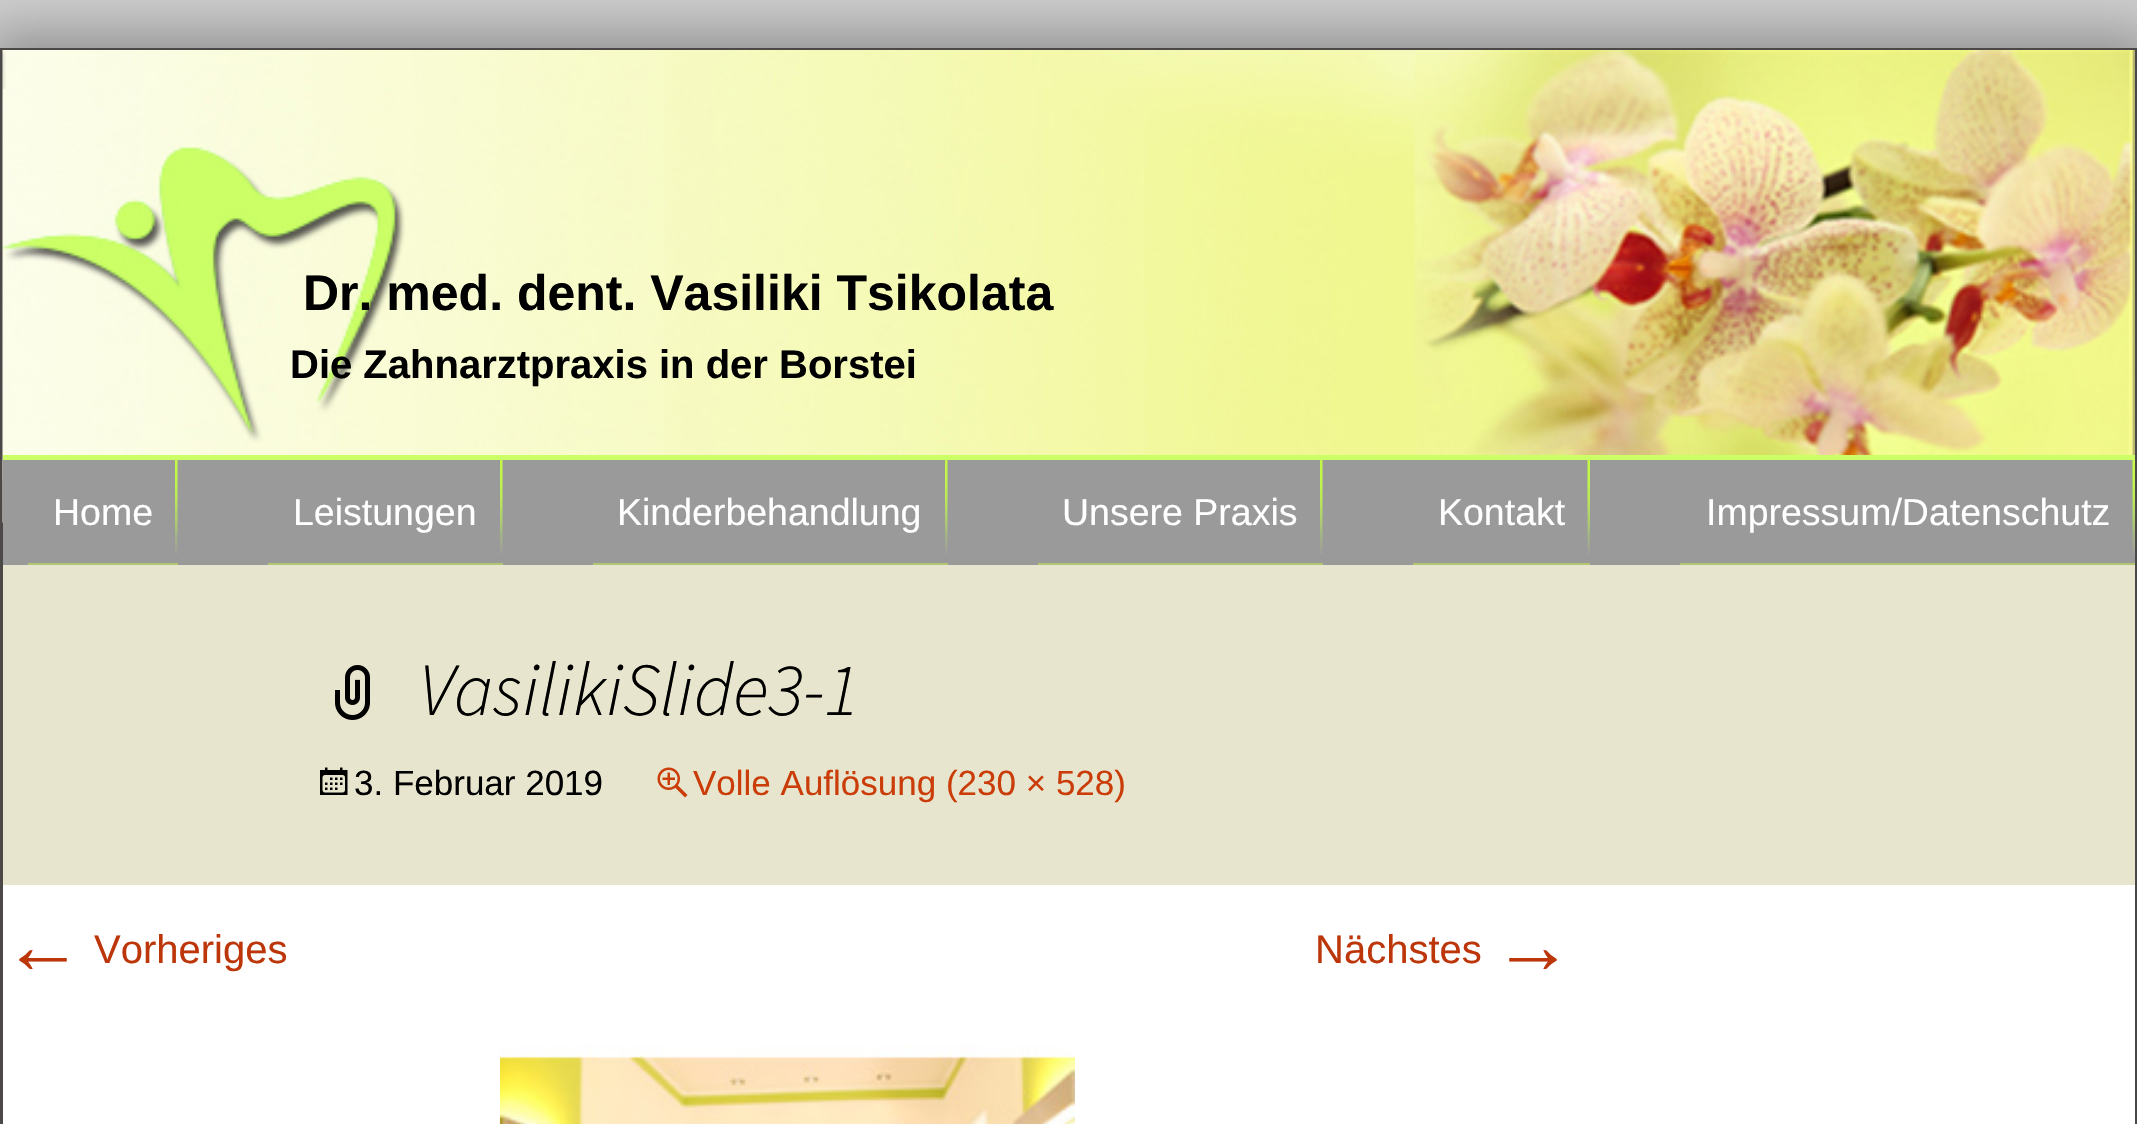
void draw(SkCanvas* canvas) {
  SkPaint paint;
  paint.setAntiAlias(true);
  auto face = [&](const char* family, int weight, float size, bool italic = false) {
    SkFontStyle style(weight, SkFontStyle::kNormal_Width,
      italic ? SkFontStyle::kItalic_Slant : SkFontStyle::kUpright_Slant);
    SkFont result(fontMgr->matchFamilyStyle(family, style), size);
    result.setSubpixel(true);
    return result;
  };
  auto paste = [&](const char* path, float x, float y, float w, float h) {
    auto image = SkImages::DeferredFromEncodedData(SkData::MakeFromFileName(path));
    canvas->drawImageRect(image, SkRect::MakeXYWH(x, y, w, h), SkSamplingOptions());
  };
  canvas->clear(0xffcecece);
  paint.setColor(0x4d000000);
  paint.setMaskFilter(SkMaskFilter::MakeBlur(kNormal_SkBlurStyle, 25));
  canvas->drawRect(SkRect::MakeXYWH(-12, 33, 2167, 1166), paint);
  paint.setMaskFilter(nullptr);
  paint.setStroke(true);
  paint.setStrokeWidth(3);
  paint.setColor(0xff4c4847);
  canvas->drawRect(SkRect::MakeXYWH(1.5f, 49.5f, 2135, 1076), paint);
  paste("img/1.png", 2, 50, 2133, 473);
  paint.setStroke(false);
  paint.setColor(0xff9a9a9a);
  canvas->drawRect(SkRect::MakeXYWH(3, 460, 2132, 105), paint);
  paint.setColor(0xffccff66);
  canvas->drawRect(SkRect::MakeXYWH(3, 455, 2132, 5), paint);
  paste("img/2.png", 175, 460, 3, 94);
  paint.setColor(0xffb2c671);
  canvas->drawRect(SkRect::MakeXYWH(28, 563, 150, 2), paint);
  paste("img/2.png", 500, 460, 3, 94);
  canvas->drawRect(SkRect::MakeXYWH(268, 563, 235, 2), paint);
  paste("img/2.png", 945, 460, 3, 94);
  canvas->drawRect(SkRect::MakeXYWH(593, 563, 355, 2), paint);
  paste("img/2.png", 1320, 460, 3, 94);
  canvas->drawRect(SkRect::MakeXYWH(1038, 563, 285, 2), paint);
  paste("img/3.png", 1587, 460, 3, 94);
  canvas->drawRect(SkRect::MakeXYWH(1413, 563, 177, 2), paint);
  paste("img/3.png", 2132, 460, 3, 94);
  canvas->drawRect(SkRect::MakeXYWH(1680, 563, 455, 2), paint);
  paint.setColor(0xffe8e5ce);
  canvas->drawRect(SkRect::MakeXYWH(3, 565, 2132, 320), paint);
  paste("img/4.png", 335, 665, 35, 55);
  paste("img/5.png", 320, 767, 28, 28);
  paste("img/6.png", 657, 767, 31, 31);
  paint.setColor(0xffffffff);
  canvas->drawRect(SkRect::MakeXYWH(3, 885, 2132, 239), paint);
  paste("img/7.png", 500, 1045, 575, 79);
  auto f0 = face("Liberation Sans", 700, 50);
  paint.setColor(0xff000000);
  canvas->drawString("Dr. med. dent. Vasiliki Tsikolata", 303, 310, f0, paint);
  auto f1 = face("Liberation Sans", 700, 40);
  canvas->drawString("Die Zahnarztpraxis in der Borstei", 290, 378, f1, paint);
  auto f2 = face("Liberation Sans", 400, 37.5f);
  paint.setColor(0xffffffff);
  {
    const struct { const char* s; float x, y; } items[] = {
      {"Home", 53, 525},
      {"Leistungen", 293, 525},
      {"Kinderbehandlung", 617, 525},
      {"Unsere Praxis", 1062, 525},
      {"Kontakt", 1438, 525},
      {"Impressum/Datenschutz", 1706, 525},
    };
    for (auto [s, x, y] : items) {
      canvas->drawString(s, x, y, f2, paint);
    }
  }
  auto f3 = face("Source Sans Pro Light", 300, 75, true);
  paint.setColor(0xff000000);
  canvas->drawString("VasilikiSlide3-1", 419, 715, f3, paint);
  auto f4 = face("Liberation Sans", 400, 35);
  canvas->drawString("3. Februar 2019", 354, 795, f4, paint);
  paint.setColor(0xffca3c08);
  canvas->drawString("Volle Auflösung (230 × 528)", 693, 795, f4, paint);
  auto f5 = face("Liberation Sans", 400, 80);
  paint.setColor(0xffbc360a);
  canvas->drawString("←", 3, 973, f5, paint);
  auto f6 = face("Liberation Sans", 400, 40);
  canvas->drawString("Vorheriges", 94, 963, f6, paint);
  canvas->drawString("Nächstes", 1315, 963, f6, paint);
  canvas->drawString("→", 1493, 973, f5, paint);
}
